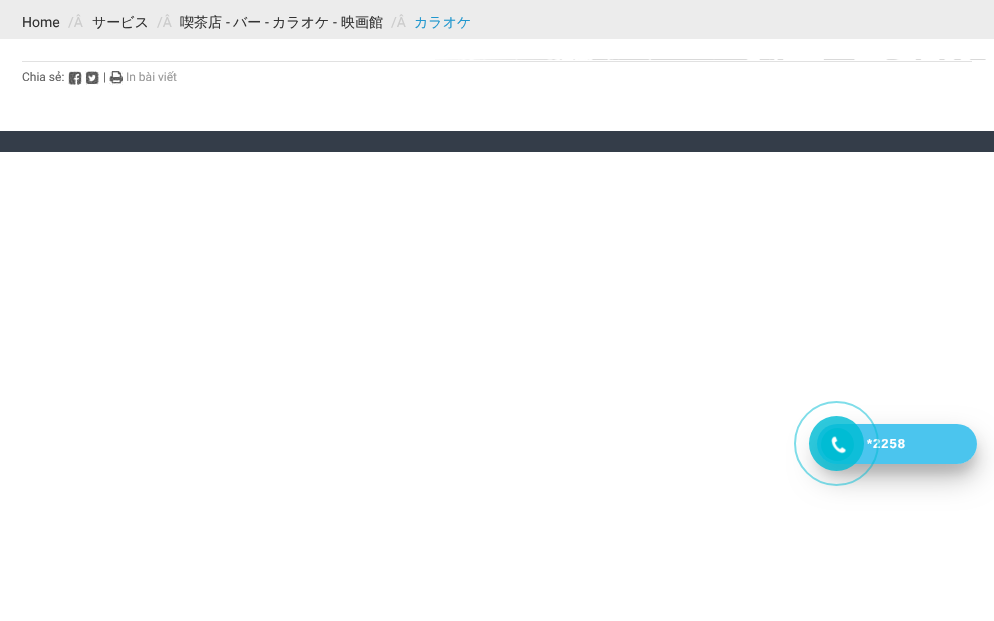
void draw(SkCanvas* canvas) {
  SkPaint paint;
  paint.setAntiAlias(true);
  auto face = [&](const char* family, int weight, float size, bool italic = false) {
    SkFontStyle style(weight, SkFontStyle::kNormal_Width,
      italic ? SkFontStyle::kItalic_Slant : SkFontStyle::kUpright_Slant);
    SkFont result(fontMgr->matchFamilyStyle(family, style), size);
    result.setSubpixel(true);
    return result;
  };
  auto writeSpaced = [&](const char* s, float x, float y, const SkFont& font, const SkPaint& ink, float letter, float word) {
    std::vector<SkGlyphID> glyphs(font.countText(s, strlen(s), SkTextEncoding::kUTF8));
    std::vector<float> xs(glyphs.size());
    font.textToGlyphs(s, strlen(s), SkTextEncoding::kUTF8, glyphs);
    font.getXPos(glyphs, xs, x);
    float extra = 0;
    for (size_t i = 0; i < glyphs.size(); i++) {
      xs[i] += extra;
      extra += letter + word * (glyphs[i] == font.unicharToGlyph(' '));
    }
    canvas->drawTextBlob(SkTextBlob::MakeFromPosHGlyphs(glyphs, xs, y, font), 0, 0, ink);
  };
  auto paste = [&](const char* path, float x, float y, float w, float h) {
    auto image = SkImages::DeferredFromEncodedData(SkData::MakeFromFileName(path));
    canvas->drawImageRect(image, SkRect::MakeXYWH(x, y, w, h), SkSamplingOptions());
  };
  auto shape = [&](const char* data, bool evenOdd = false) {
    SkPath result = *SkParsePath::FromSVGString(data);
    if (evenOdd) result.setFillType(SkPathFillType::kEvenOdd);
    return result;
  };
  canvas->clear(0xffffffff);
  paint.setColor(0xffececec);
  canvas->drawRect(SkRect::MakeXYWH(0, 0, 994, 39), paint);
  paste("img/1.png", 435, 59, 551, 1);
  paint.setColor(0xffe1e1e1);
  canvas->drawRect(SkRect::MakeXYWH(22, 61, 950, 1), paint);
  paste("img/2.png", 68, 71, 14, 14);
  paste("img/3.png", 85, 71, 14, 14);
  paste("img/4.png", 109, 71, 14, 14);
  canvas->save();
  canvas->clipPath(shape("M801 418H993V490H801ZM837 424H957C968 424 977 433 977 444C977 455 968 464 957 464H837C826 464 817 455 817 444C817 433 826 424 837 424Z", true), true);
  paint.setColor(0x1a000000);
  paint.setMaskFilter(SkMaskFilter::MakeBlur(kNormal_SkBlurStyle, 5));
  canvas->drawRoundRect(SkRect::MakeXYWH(817, 434, 160, 40), 20, 20, paint);
  paint.setMaskFilter(nullptr);
  canvas->restore();
  canvas->save();
  canvas->clipPath(shape("M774 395H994V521H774ZM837 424H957C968 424 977 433 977 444C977 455 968 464 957 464H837C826 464 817 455 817 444C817 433 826 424 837 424Z", true), true);
  paint.setColor(0x40000000);
  paint.setMaskFilter(SkMaskFilter::MakeBlur(kNormal_SkBlurStyle, 14));
  canvas->drawRoundRect(SkRect::MakeXYWH(817, 438, 160, 40), 20, 20, paint);
  paint.setMaskFilter(nullptr);
  canvas->restore();
  paint.setColor(0xd628baeb);
  canvas->drawRoundRect(SkRect::MakeXYWH(817, 424, 160, 40), 20, 20, paint);
  paint.setColor(0xff343d49);
  canvas->drawRect(SkRect::MakeXYWH(0, 131, 994, 21), paint);
  auto f0 = face("Roboto", 400, 14);
  paint.setColor(0xff333333);
  canvas->drawString("Home", 22, 27, f0, paint);
  paint.setColor(0xffcccccc);
  canvas->drawString("/Â", 68, 27, f0, paint);
  auto f1 = face("WenQuanYi Zen Hei", 500, 14);
  paint.setColor(0xff333333);
  canvas->drawString("サービス", 92, 27, f1, paint);
  paint.setColor(0xffcccccc);
  canvas->drawString("/Â", 157, 27, f0, paint);
  paint.setColor(0xff333333);
  canvas->drawString("喫茶店", 180, 27, f1, paint);
  canvas->drawString("-", 226, 27, f0, paint);
  canvas->drawString("バー", 233, 27, f1, paint);
  canvas->drawString("-", 265, 27, f0, paint);
  canvas->drawString("カラオケ", 272, 27, f1, paint);
  canvas->drawString("-", 333, 27, f0, paint);
  canvas->drawString("映画館", 341, 27, f1, paint);
  paint.setColor(0xffcccccc);
  canvas->drawString("/Â", 391, 27, f0, paint);
  paint.setColor(0xff2097ce);
  canvas->drawString("カラオケ", 414, 27, f1, paint);
  auto f2 = face("Roboto", 400, 12);
  paint.setColor(0xff626262);
  canvas->drawString("Chia sẻ:", 22, 81, f2, paint);
  canvas->drawString("|", 103, 81, f2, paint);
  paint.setColor(0xff999999);
  canvas->drawString("In bài viết", 126, 81, f2, paint);
  auto f3 = face("Liberation Sans", 700, 13);
  paint.setColor(0xffffffff);
  writeSpaced("*2258", 867, 448, f3, paint, 1, 0);
  paint.setStroke(true);
  paint.setStrokeWidth(2);
  paint.setColor(0x8000bcd4);
  canvas->drawCircle(836.5f, 443.5f, 41.5f, paint);
  paint.setStroke(false);
  paint.setColor(0xd100bcd4);
  canvas->drawCircle(836.5f, 443.5f, 27.5f, paint);
  paint.setColor(0xff00bcd4);
  canvas->drawCircle(837.5f, 444.5f, 16.5f, paint);
  paste("img/5.png", 831, 436, 16, 18);
}
